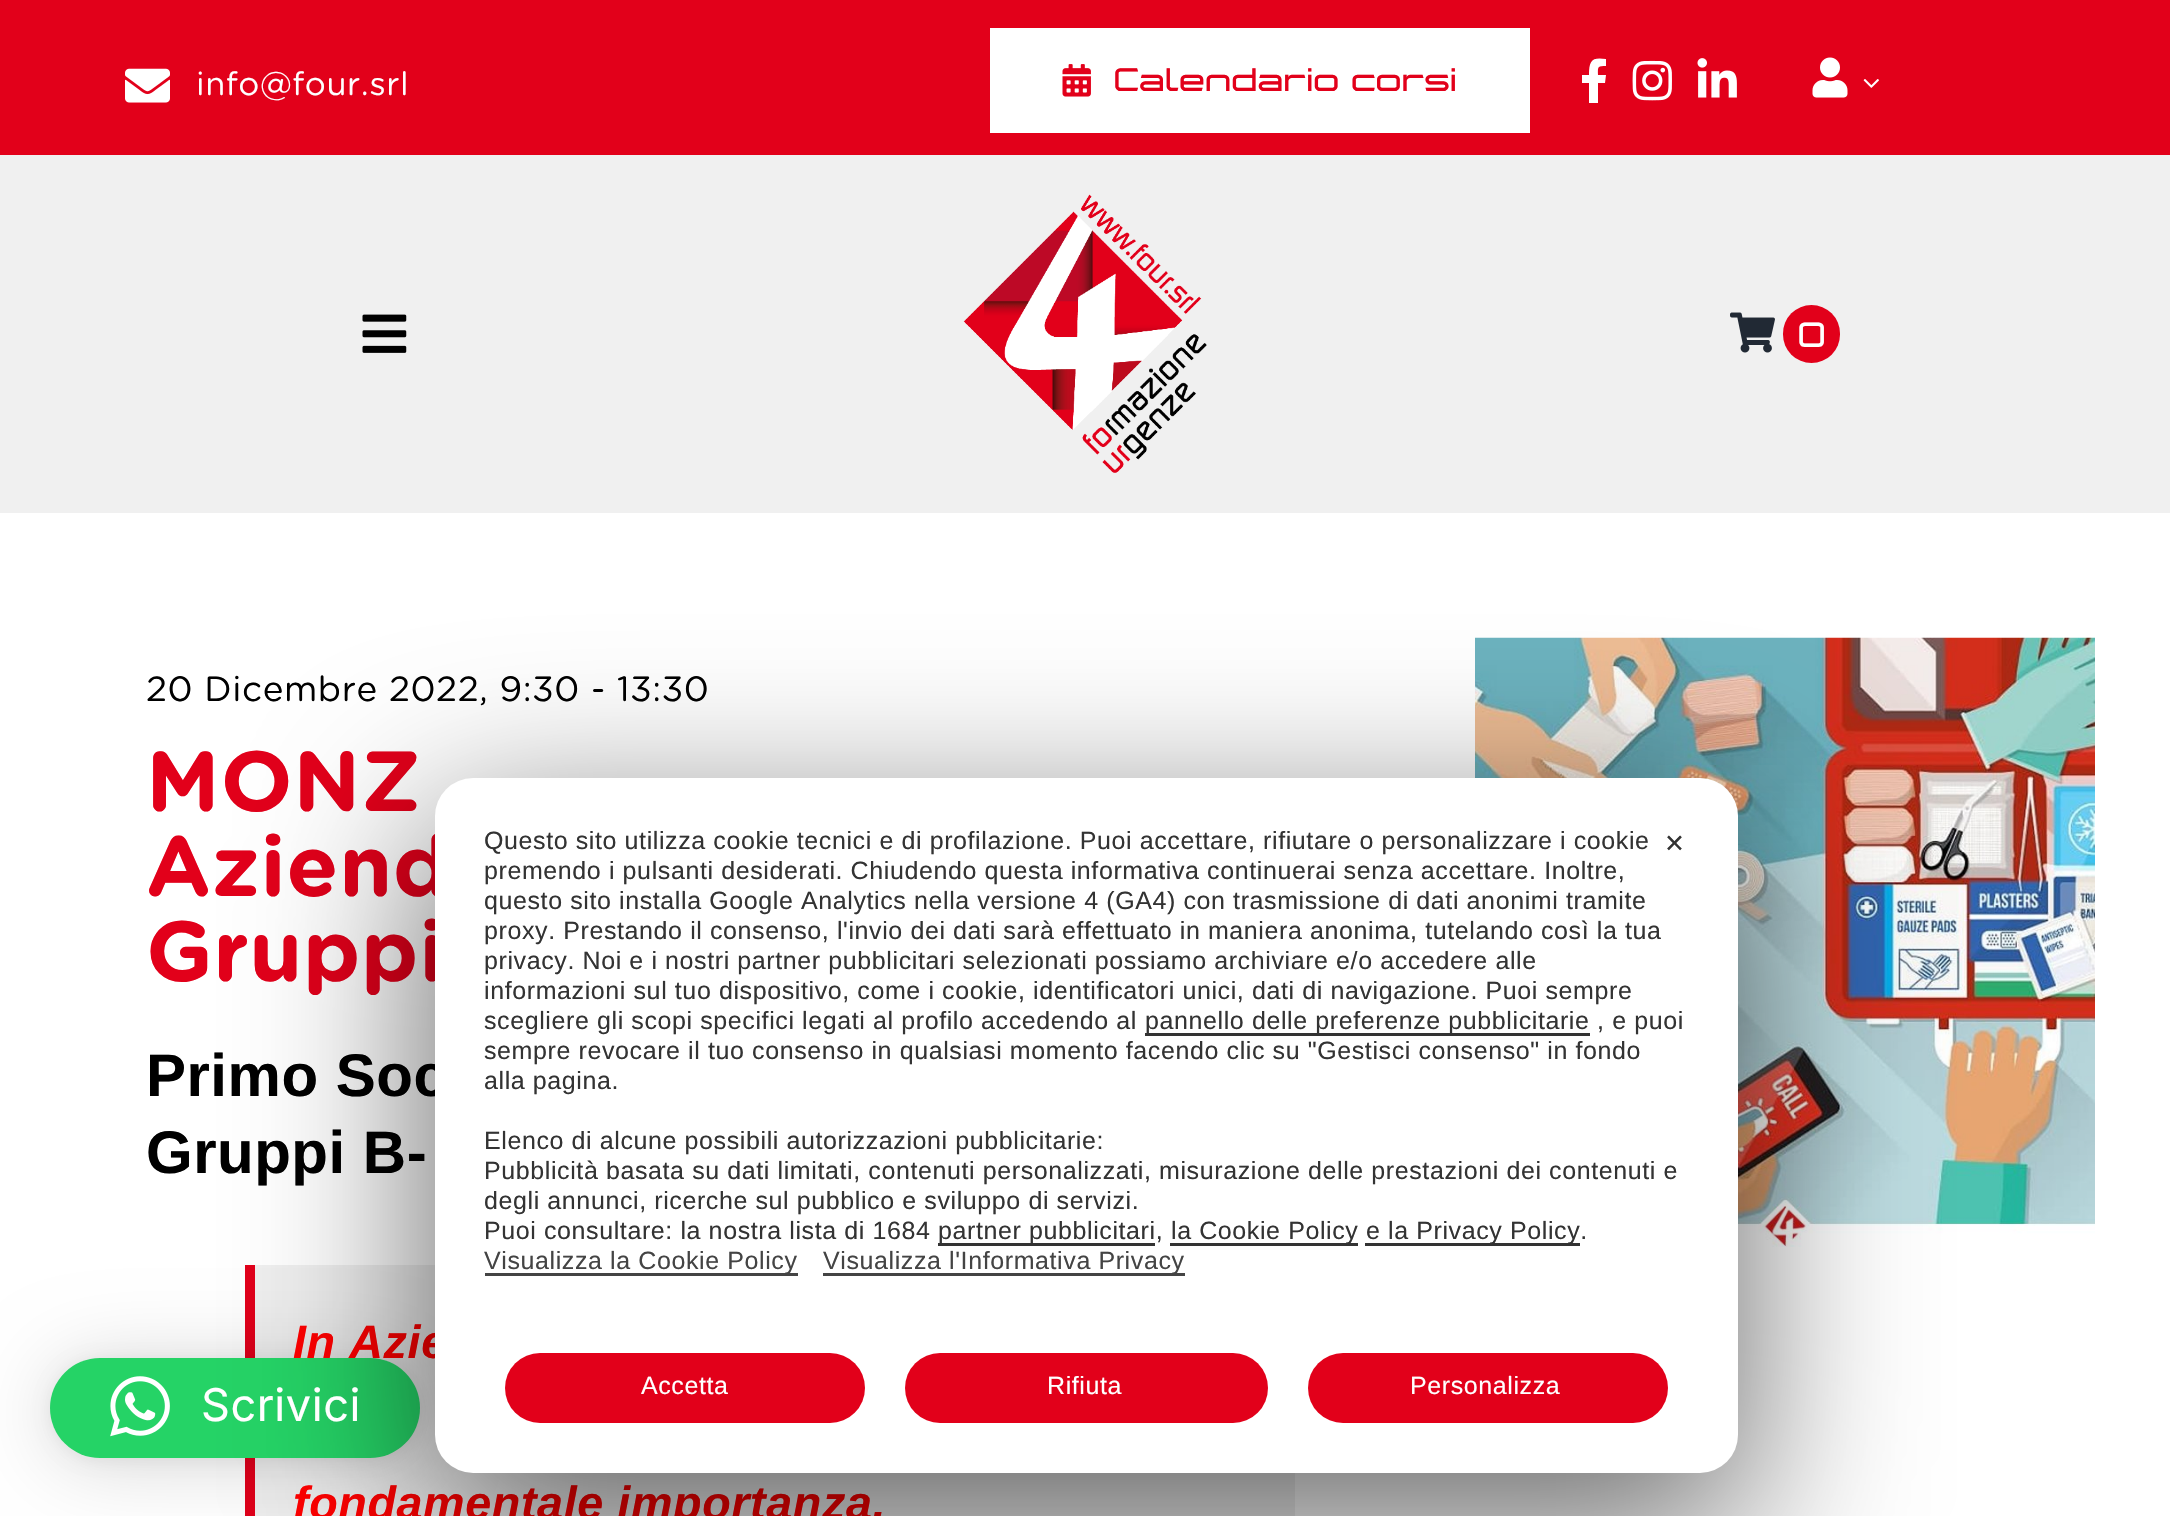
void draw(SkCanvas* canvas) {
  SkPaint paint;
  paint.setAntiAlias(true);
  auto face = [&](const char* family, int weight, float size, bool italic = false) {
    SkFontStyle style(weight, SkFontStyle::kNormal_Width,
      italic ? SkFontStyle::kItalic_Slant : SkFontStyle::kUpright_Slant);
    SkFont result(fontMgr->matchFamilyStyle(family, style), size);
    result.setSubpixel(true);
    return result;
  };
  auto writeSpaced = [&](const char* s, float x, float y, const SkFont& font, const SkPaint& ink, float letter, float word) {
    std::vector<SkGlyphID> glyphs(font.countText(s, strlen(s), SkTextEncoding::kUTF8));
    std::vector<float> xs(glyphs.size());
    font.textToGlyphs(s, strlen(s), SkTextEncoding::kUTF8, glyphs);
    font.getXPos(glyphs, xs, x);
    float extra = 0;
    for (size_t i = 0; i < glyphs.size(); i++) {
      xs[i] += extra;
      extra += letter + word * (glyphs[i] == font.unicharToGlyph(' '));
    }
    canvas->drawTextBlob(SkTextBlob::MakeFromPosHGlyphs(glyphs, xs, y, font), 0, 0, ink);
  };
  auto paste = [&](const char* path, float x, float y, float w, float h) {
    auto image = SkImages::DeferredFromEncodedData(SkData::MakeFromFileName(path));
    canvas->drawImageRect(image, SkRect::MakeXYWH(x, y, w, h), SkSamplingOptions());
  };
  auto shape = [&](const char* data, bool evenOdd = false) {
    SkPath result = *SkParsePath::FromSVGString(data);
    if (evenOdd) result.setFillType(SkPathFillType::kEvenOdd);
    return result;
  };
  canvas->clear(0xffffffff);
  paint.setColor(0xffe2001a);
  canvas->drawRect(SkRect::MakeXYWH(0, 0, 2170, 155), paint);
  paste("img/1.png", 125, 68, 45, 35);
  paint.setColor(0xffffffff);
  canvas->drawRect(SkRect::MakeXYWH(990, 28, 540, 105), paint);
  paste("img/2.png", 1062, 64, 29, 33);
  canvas->drawPath(shape("M1605 83H1598V103H1589V83H1582V75H1589C1589 60 1592 57 1606 59V66C1597 66 1598 67 1598 75H1606Z"), paint);
  paste("img/3.png", 1632, 60, 40, 41);
  paste("img/4.png", 1697, 58, 40, 40);
  paste("img/5.png", 1812, 57, 36, 41);
  paste("img/6.png", 1863, 79, 16, 9);
  paint.setColor(0xfff0f0f0);
  canvas->drawRect(SkRect::MakeXYWH(0, 155, 2170, 358), paint);
  paste("img/7.png", 362, 314, 45, 39);
  paste("img/8.png", 963, 194, 244, 279);
  paste("img/9.png", 1730, 312, 45, 41);
  paint.setColor(0xffe2001a);
  canvas->drawRoundRect(SkRect::MakeXYWH(1783, 305, 57, 58), 28.5f, 28.5f, paint);
  paint.setColor(0xfff0f0f0);
  canvas->drawRect(SkRect::MakeXYWH(255, 1265, 1040, 251), paint);
  paint.setColor(0xffe2001a);
  canvas->drawRect(SkRect::MakeXYWH(245, 1265, 10, 251), paint);
  paste("img/10.png", 1475, 637, 620, 610);
  paint.setColor(0x29000000);
  paint.setMaskFilter(SkMaskFilter::MakeBlur(kNormal_SkBlurStyle, 40));
  canvas->drawRoundRect(SkRect::MakeXYWH(50, 1363, 370, 100), 50, 50, paint);
  paint.setMaskFilter(nullptr);
  paint.setColor(0x0f000000);
  paint.setMaskFilter(SkMaskFilter::MakeBlur(kNormal_SkBlurStyle, 7.5f));
  canvas->drawRoundRect(SkRect::MakeXYWH(50, 1360, 370, 100), 50, 50, paint);
  paint.setMaskFilter(nullptr);
  auto f0 = face("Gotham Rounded", 400, 32.5f);
  paint.setColor(0xffffffff);
  writeSpaced("info@four.srl", 196, 95, f0, paint, 0.6f, 0);
  auto f1 = face("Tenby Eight", 700, 32.5f);
  paint.setColor(0xffe2001a);
  writeSpaced("Calendario corsi", 1114, 91, f1, paint, 0.5f, 0);
  auto f2 = face("Tenby Eight", 700, 35);
  paint.setColor(0xffffffff);
  writeSpaced("0", 1798, 347, f2, paint, 0.5f, 0);
  auto f3 = face("Gotham Rounded", 400, 35);
  paint.setColor(0xff000000);
  writeSpaced("20 Dicembre 2022, 9:30 - 13:30", 146, 701, f3, paint, 0.6f, 0);
  auto f4 = face("Gotham Rounded", 700, 85);
  paint.setColor(0xffe2001a);
  {
    const struct { const char* s; float x, y; } items[] = {
      {"MONZ", 146, 811},
      {"Aziend", 146, 896},
      {"Gruppi", 146, 981},
    };
    for (auto [s, x, y] : items) {
      writeSpaced(s, x, y, f4, paint, 0.6f, 0);
    }
  }
  auto f5 = face("Liberation Sans", 700, 60);
  paint.setColor(0xff000000);
  writeSpaced("Primo Soc", 146, 1096, f5, paint, 0.5f, 0);
  writeSpaced("Gruppi B-", 146, 1173, f5, paint, 0.5f, 0);
  auto f6 = face("Liberation Sans", 700, 46.7f, true);
  paint.setColor(0xffff0000);
  writeSpaced("In Azie", 293, 1358, f6, paint, 0.6f, 0);
  writeSpaced("fondamentale importanza.", 293, 1519, f6, paint, 0.6f, 0);
  paint.setColor(0xff25d366);
  canvas->drawRoundRect(SkRect::MakeXYWH(50, 1358, 370, 100), 50, 50, paint);
  paste("img/11.png", 110, 1376, 60, 61);
  paint.setColor(0x8f000000);
  paint.setMaskFilter(SkMaskFilter::MakeBlur(kNormal_SkBlurStyle, 87.5f));
  canvas->drawRoundRect(SkRect::MakeXYWH(425, 823, 1323, 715), 48, 48, paint);
  paint.setMaskFilter(nullptr);
  paint.setColor(0xffffffff);
  canvas->drawRoundRect(SkRect::MakeXYWH(435, 778, 1303, 695), 38, 38, paint);
  auto f7 = face("DejaVu Sans", 400, 25);
  paint.setColor(0xff333333);
  writeSpaced("✕", 1664, 852, f7, paint, 0.6f, 0);
  paint.setColor(0xffe2001a);
  canvas->drawRoundRect(SkRect::MakeXYWH(1308, 1353, 360, 70), 35, 35, paint);
  auto f8 = face("Liberation Sans", 400, 25);
  paint.setColor(0xffffffff);
  writeSpaced("Personalizza", 1410, 1394, f8, paint, 0.6f, 0);
  paint.setColor(0xffe2001a);
  canvas->drawRoundRect(SkRect::MakeXYWH(905, 1353, 363, 70), 35, 35, paint);
  paint.setColor(0xffffffff);
  writeSpaced("Rifiuta", 1047, 1394, f8, paint, 0.6f, 0);
  paint.setColor(0xffe2001a);
  canvas->drawRoundRect(SkRect::MakeXYWH(505, 1353, 360, 70), 35, 35, paint);
  paint.setColor(0xffffffff);
  writeSpaced("Accetta", 641, 1394, f8, paint, 0.6f, 0);
  paint.setColor(0xff444444);
  canvas->drawRect(SkRect::MakeXYWH(823, 1273, 362, 3), paint);
  writeSpaced("Visualizza l'Informativa Privacy", 823, 1269, f8, paint, 0.6f, 0);
  canvas->drawRect(SkRect::MakeXYWH(485, 1273, 313, 3), paint);
  writeSpaced("Visualizza la Cookie Policy", 484, 1269, f8, paint, 0.6f, 0);
  paint.setColor(0xff333333);
  canvas->drawRect(SkRect::MakeXYWH(1365, 1243, 215, 3), paint);
  writeSpaced("e la Privacy Policy.", 1366, 1239, f8, paint, 0.6f, 0);
  canvas->drawRect(SkRect::MakeXYWH(1170, 1243, 188, 3), paint);
  writeSpaced("la Cookie Policy", 1171, 1239, f8, paint, 0.6f, 0);
  canvas->drawRect(SkRect::MakeXYWH(938, 1243, 217, 3), paint);
  {
    const struct { const char* s; float x, y; } items[] = {
      {"partner pubblicitari,", 938, 1239},
      {"Puoi consultare: la nostra lista di 1684", 484, 1239},
      {"degli annunci, ricerche sul pubblico e sviluppo di servizi.", 484, 1209},
      {"Pubblicità basata su dati limitati, contenuti personalizzati, misurazione delle prestazioni dei contenuti e", 484, 1179},
      {"Elenco di alcune possibili autorizzazioni pubblicitarie:", 484, 1149},
      {"alla pagina.", 484, 1089},
      {"sempre revocare il tuo consenso in qualsiasi momento facendo clic su \"Gestisci consenso\" in fondo", 484, 1059},
    };
    for (auto [s, x, y] : items) {
      writeSpaced(s, x, y, f8, paint, 0.6f, 0);
    }
  }
  canvas->drawRect(SkRect::MakeXYWH(1145, 1033, 445, 3), paint);
  {
    const struct { const char* s; float x, y; } items[] = {
      {"pannello delle preferenze pubblicitarie , e puoi", 1145, 1029},
      {"scegliere gli scopi specifici legati al profilo accedendo al", 484, 1029},
      {"informazioni sul tuo dispositivo, come i cookie, identificatori unici, dati di navigazione. Puoi sempre", 484, 999},
      {"privacy. Noi e i nostri partner pubblicitari selezionati possiamo archiviare e/o accedere alle", 484, 969},
      {"proxy. Prestando il consenso, l'invio dei dati sarà effettuato in maniera anonima, tutelando così la tua", 484, 939},
      {"questo sito installa Google Analytics nella versione 4 (GA4) con trasmissione di dati anonimi tramite", 484, 909},
      {"premendo i pulsanti desiderati. Chiudendo questa informativa continuerai senza accettare. Inoltre,", 484, 879},
      {"Questo sito utilizza cookie tecnici e di profilazione. Puoi accettare, rifiutare o personalizzare i cookie", 484, 849},
    };
    for (auto [s, x, y] : items) {
      writeSpaced(s, x, y, f8, paint, 0.6f, 0);
    }
  }
  auto f9 = face("Inter", 400, 45);
  paint.setColor(0xffffffff);
  writeSpaced("Scrivici", 201, 1421, f9, paint, 0.6f, 0);
}
